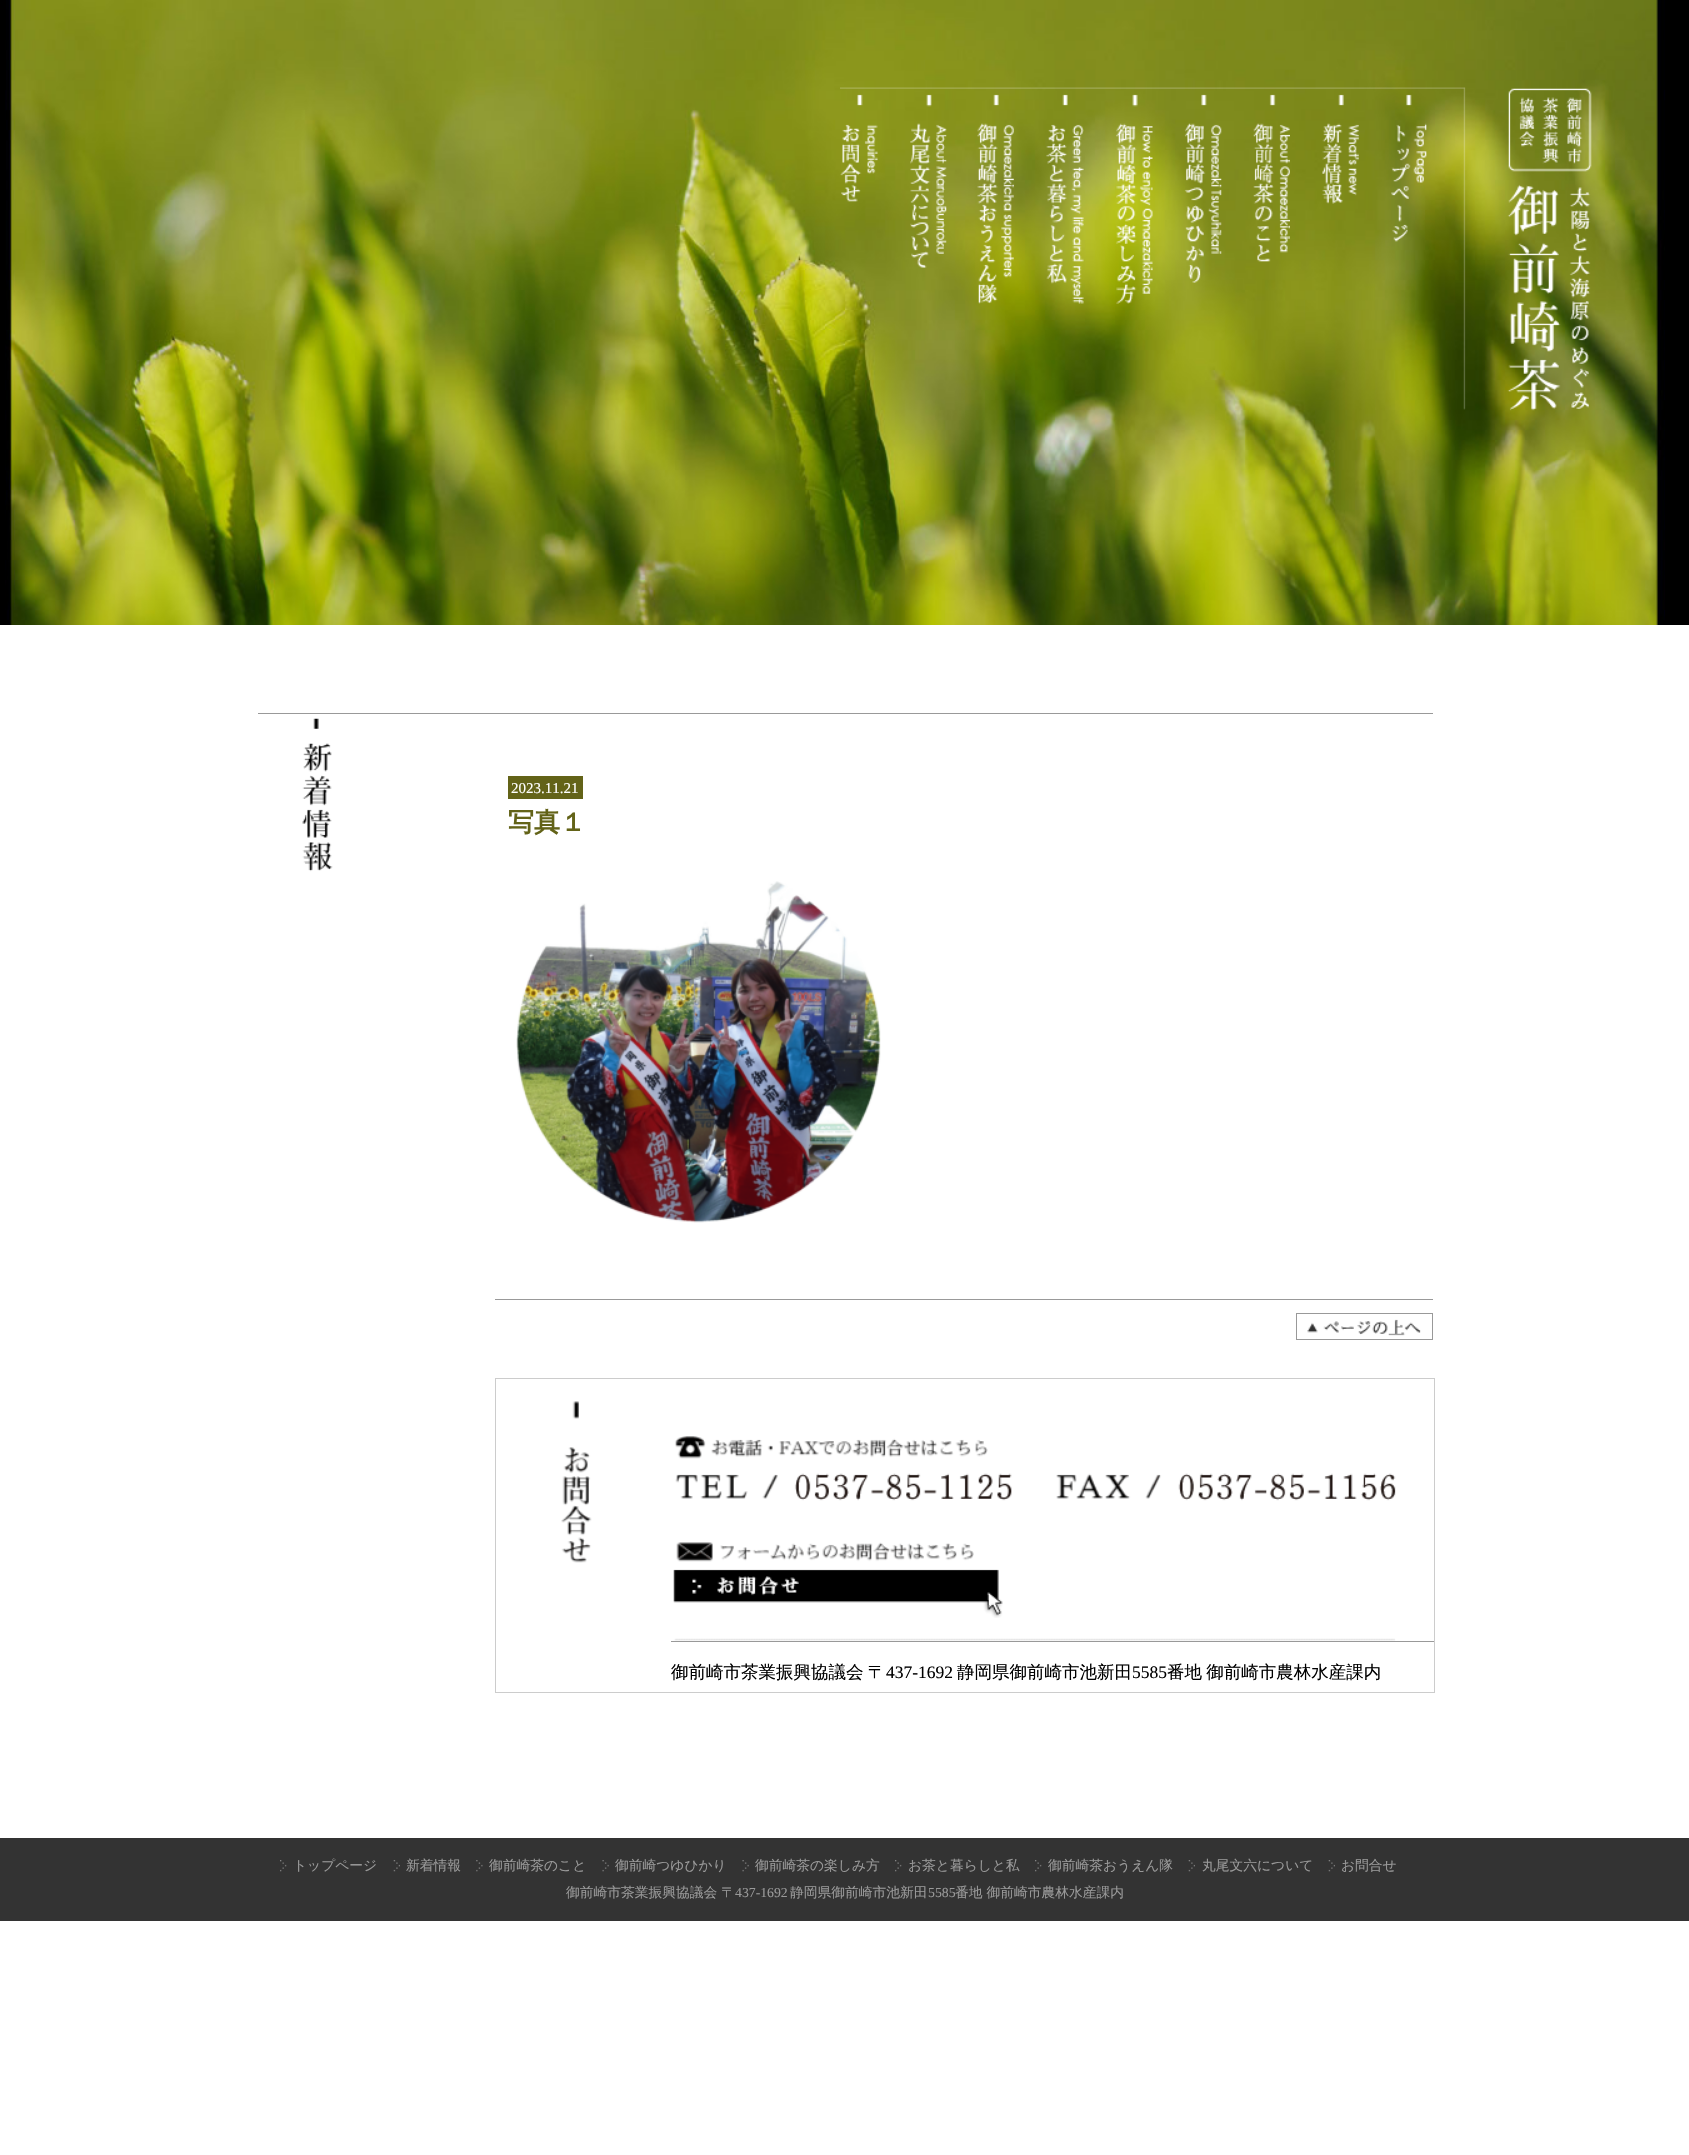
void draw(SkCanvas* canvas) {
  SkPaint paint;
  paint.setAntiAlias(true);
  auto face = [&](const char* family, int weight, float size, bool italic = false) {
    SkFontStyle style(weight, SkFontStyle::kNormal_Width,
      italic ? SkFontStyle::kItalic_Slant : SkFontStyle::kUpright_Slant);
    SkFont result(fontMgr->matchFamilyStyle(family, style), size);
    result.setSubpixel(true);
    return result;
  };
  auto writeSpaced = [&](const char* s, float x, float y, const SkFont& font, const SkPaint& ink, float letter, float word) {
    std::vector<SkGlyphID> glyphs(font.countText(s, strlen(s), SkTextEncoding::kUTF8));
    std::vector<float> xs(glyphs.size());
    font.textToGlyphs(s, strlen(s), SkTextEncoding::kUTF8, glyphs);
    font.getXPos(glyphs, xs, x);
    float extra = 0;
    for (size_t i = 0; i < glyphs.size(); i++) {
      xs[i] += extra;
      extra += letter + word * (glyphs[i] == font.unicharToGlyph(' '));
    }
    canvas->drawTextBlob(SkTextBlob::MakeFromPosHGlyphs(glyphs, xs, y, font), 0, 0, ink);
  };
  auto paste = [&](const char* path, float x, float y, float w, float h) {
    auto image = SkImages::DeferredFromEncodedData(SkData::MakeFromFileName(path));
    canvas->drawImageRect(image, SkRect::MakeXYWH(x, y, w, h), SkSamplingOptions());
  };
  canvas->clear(0xffffffff);
  paste("img/1.png", 0, 0, 1689, 625);
  paste("img/2.png", 840, 87, 626, 323);
  paste("img/3.png", 840, 94, 38, 108);
  paste("img/4.png", 910, 94, 37, 174);
  paste("img/5.png", 977, 94, 37, 210);
  paste("img/6.png", 1046, 94, 38, 210);
  paste("img/7.png", 1116, 94, 37, 210);
  paste("img/8.png", 1184, 94, 38, 189);
  paste("img/9.png", 1253, 94, 37, 168);
  paste("img/10.png", 1322, 94, 37, 110);
  paste("img/11.png", 1391, 94, 36, 148);
  paste("img/12.png", 1507, 88, 85, 323);
  paint.setColor(0xff999999);
  canvas->drawRect(SkRect::MakeXYWH(258, 713, 1175, 1), paint);
  paste("img/13.png", 302, 718, 31, 154);
  paint.setColor(0xff636318);
  canvas->drawRect(SkRect::MakeXYWH(508, 776, 75, 23), paint);
  paste("img/14.png", 516, 881, 365, 342);
  paint.setColor(0xff999999);
  canvas->drawRect(SkRect::MakeXYWH(495, 1299, 938, 1), paint);
  paint.setStroke(true);
  paint.setStrokeWidth(1);
  canvas->drawRect(SkRect::MakeXYWH(1296.5f, 1313.5f, 136, 26), paint);
  paste("img/15.png", 1307, 1319, 114, 17);
  paste("img/16.png", 561, 1401, 835, 240);
  paint.setColor(0xffcccccc);
  canvas->drawRect(SkRect::MakeXYWH(495.5f, 1378.5f, 939, 314), paint);
  paste("img/17.png", 673, 1569, 330, 49);
  paint.setStroke(false);
  paint.setColor(0xff999999);
  canvas->drawRect(SkRect::MakeXYWH(671, 1641, 763, 1), paint);
  paint.setColor(0xff333333);
  canvas->drawRect(SkRect::MakeXYWH(0, 1838, 1689, 83), paint);
  paste("img/18.png", 280, 1860, 7, 12);
  paste("img/19.png", 393, 1860, 7, 12);
  paste("img/20.png", 476, 1860, 7, 12);
  paste("img/21.png", 602, 1860, 7, 12);
  paste("img/21.png", 742, 1860, 7, 12);
  paste("img/22.png", 895, 1860, 7, 12);
  paste("img/22.png", 1035, 1860, 7, 12);
  paste("img/23.png", 1188, 1860, 7, 12);
  paste("img/23.png", 1328, 1860, 7, 12);
  auto f0 = face("Liberation Serif", 400, 15);
  paint.setColor(0xffffffff);
  canvas->drawString("2023.11.21", 511, 793, f0, paint);
  auto f1 = face("WenQuanYi Zen Hei", 700, 26);
  paint.setColor(0xff636318);
  canvas->drawString("写真１", 508, 831, f1, paint);
  auto f2 = face("WenQuanYi Zen Hei", 500, 17.5f);
  paint.setColor(0xff000000);
  writeSpaced("御前崎市茶業振興協議会 〒", 671, 1678, f2, paint, 0, -1);
  auto f3 = face("Liberation Serif", 400, 17.5f);
  canvas->drawString("437-1692", 886, 1678, f3, paint);
  canvas->drawString("静岡県御前崎市池新田", 957, 1678, f2, paint);
  canvas->drawString("5585", 1132, 1678, f3, paint);
  writeSpaced("番地 御前崎市農林水産課内", 1167, 1678, f2, paint, 0, -1);
  auto f4 = face("WenQuanYi Zen Hei", 500, 13.75f);
  paint.setColor(0xff999999);
  {
    const struct { const char* s; float x, y; } items[] = {
      {"トップページ", 293, 1870},
      {"新着情報", 406, 1870},
      {"御前崎茶のこと", 489, 1870},
      {"御前崎つゆひかり", 615, 1870},
      {"御前崎茶の楽しみ方", 755, 1870},
      {"お茶と暮らしと私", 908, 1870},
      {"御前崎茶おうえん隊", 1048, 1870},
      {"丸尾文六について", 1202, 1870},
      {"お問合せ", 1341, 1870},
      {"御前崎市茶業振興協議会 〒", 566, 1897},
    };
    for (auto [s, x, y] : items) {
      canvas->drawString(s, x, y, f4, paint);
    }
  }
  auto f5 = face("Liberation Serif", 400, 13.75f);
  canvas->drawString("437-1692", 735, 1897, f5, paint);
  canvas->drawString("静岡県御前崎市池新田", 790, 1897, f4, paint);
  canvas->drawString("5585", 928, 1897, f5, paint);
  canvas->drawString("番地 御前崎市農林水産課内", 955, 1897, f4, paint);
}
